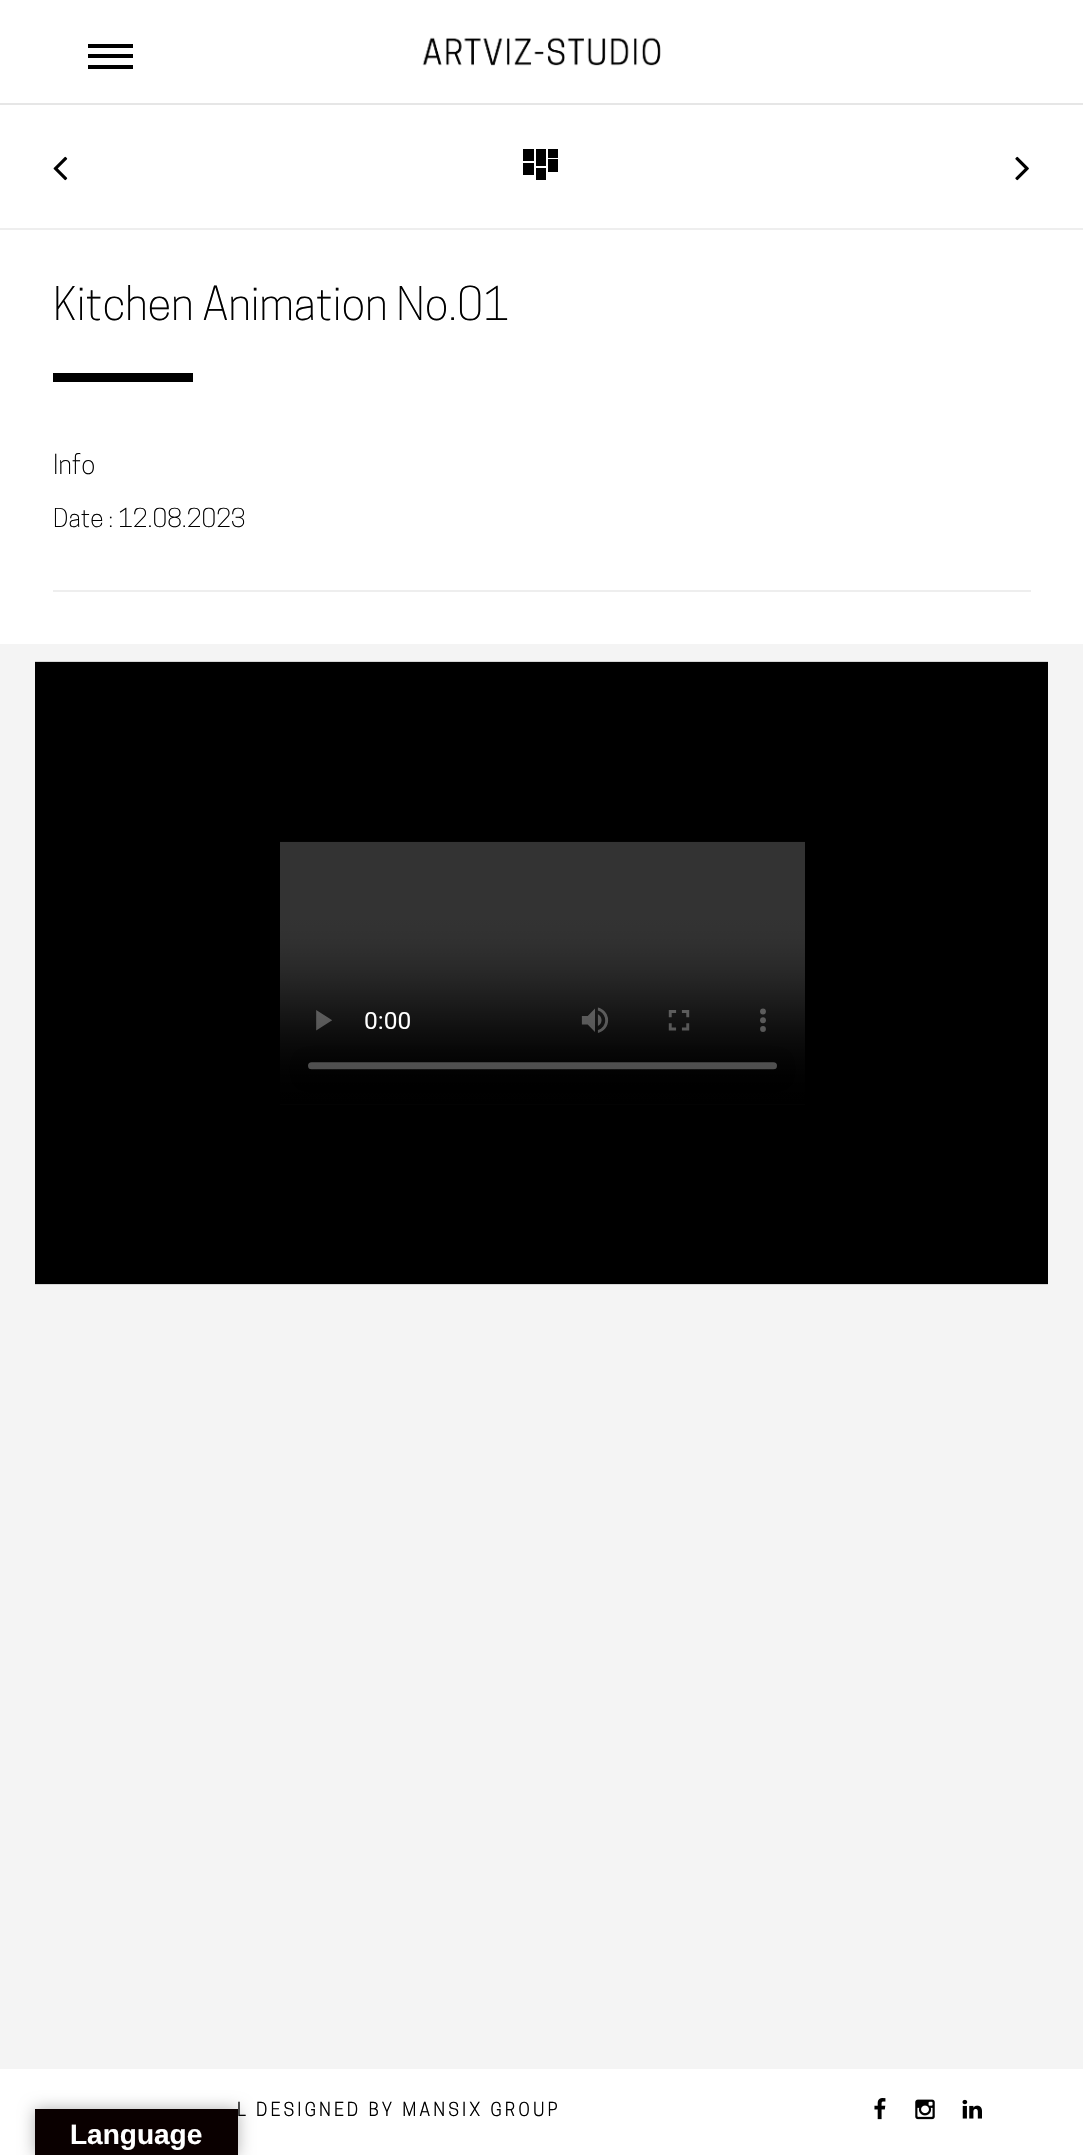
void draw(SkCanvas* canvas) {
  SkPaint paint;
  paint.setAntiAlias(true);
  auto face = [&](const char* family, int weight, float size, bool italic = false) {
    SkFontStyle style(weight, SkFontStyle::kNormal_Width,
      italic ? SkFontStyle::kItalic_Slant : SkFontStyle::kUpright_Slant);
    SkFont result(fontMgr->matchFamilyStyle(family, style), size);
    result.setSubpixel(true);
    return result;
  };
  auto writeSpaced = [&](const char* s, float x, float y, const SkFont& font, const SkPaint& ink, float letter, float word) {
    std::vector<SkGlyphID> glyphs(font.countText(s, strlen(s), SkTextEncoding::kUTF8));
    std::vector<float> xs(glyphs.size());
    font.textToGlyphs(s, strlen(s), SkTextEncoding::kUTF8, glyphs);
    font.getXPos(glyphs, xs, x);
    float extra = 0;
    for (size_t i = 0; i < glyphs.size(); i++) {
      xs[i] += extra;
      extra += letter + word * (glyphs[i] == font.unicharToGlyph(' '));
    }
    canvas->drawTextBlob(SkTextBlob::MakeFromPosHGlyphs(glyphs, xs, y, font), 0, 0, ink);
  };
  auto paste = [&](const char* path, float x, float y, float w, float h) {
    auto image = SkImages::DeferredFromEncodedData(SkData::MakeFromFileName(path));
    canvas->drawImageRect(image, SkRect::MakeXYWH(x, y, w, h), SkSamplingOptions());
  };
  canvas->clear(0xfff4f4f4);
  {
    const struct { float x, y, w, h; SkColor color; } items[] = {
      {0, 0, 1083, 103, 0xffffffff},
      {0, 103, 1083, 2, 0xffe6e6e6},
      {88, 44, 45, 4, 0xff000000},
      {88, 54, 45, 4, 0xff000000},
      {88, 65, 45, 4, 0xff000000},
    };
    for (auto [x, y, w, h, color] : items) {
      paint.setColor(color);
      canvas->drawRect(SkRect::MakeXYWH(x, y, w, h), paint);
    }
  }
  paste("img/1.png", 422, 37, 239, 29);
  paint.setColor(0xffffffff);
  canvas->drawRect(SkRect::MakeXYWH(0, 105, 1083, 539), paint);
  paint.setColor(0xffeeeeee);
  canvas->drawRect(SkRect::MakeXYWH(0, 228, 1083, 2), paint);
  paste("img/2.png", 53, 156, 15, 25);
  {
    const struct { float x, y, w, h; SkColor color; } items[] = {
      {523, 149, 11, 12, 0xff000000},
      {536, 149, 10, 17, 0xff000000},
      {548, 149, 10, 9, 0xff000000},
      {523, 163, 11, 12, 0xff000000},
      {536, 168, 10, 12, 0xff000000},
      {548, 159, 10, 13, 0xff000000},
    };
    for (auto [x, y, w, h, color] : items) {
      paint.setColor(color);
      canvas->drawRect(SkRect::MakeXYWH(x, y, w, h), paint);
    }
  }
  paste("img/3.png", 1015, 156, 14, 25);
  canvas->drawRect(SkRect::MakeXYWH(53, 373, 140, 9), paint);
  paint.setColor(0xffeeeeee);
  canvas->drawRect(SkRect::MakeXYWH(53, 590, 978, 2), paint);
  paste("img/4.png", 35, 661, 1013, 624);
  paint.setColor(0xffffffff);
  canvas->drawRect(SkRect::MakeXYWH(0, 2069, 1083, 86), paint);
  paste("img/5.png", 874, 2098, 12, 22);
  paste("img/6.png", 915, 2099, 20, 21);
  paste("img/7.png", 962, 2099, 20, 20);
  paint.setColor(0x4d000000);
  paint.setMaskFilter(SkMaskFilter::MakeBlur(kNormal_SkBlurStyle, 8));
  canvas->drawRect(SkRect::MakeXYWH(35, 2109, 203, 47), paint);
  paint.setMaskFilter(nullptr);
  paint.setColor(0xff0a0000);
  canvas->drawRect(SkRect::MakeXYWH(35, 2109, 203, 46), paint);
  auto f0 = face("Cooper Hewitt", 300, 43.75f);
  paint.setColor(0xff000000);
  canvas->drawString("Kitchen Animation No.01", 53, 320, f0, paint);
  auto f1 = face("Cooper Hewitt", 300, 26);
  canvas->drawString("Info", 53, 474, f1, paint);
  auto f2 = face("Cooper Hewitt", 300, 24.5f);
  canvas->drawString("Date : 12.08.2023", 53, 527, f2, paint);
  auto f3 = face("Cooper Hewitt", 700, 17.5f);
  writeSpaced("L DESIGNED BY MANSIX GROUP", 237, 2116, f3, paint, 3.5f, 0);
  auto f4 = face("Liberation Sans", 700, 28);
  paint.setColor(0xffffffff);
  canvas->drawString("Language", 70, 2144, f4, paint);
}
